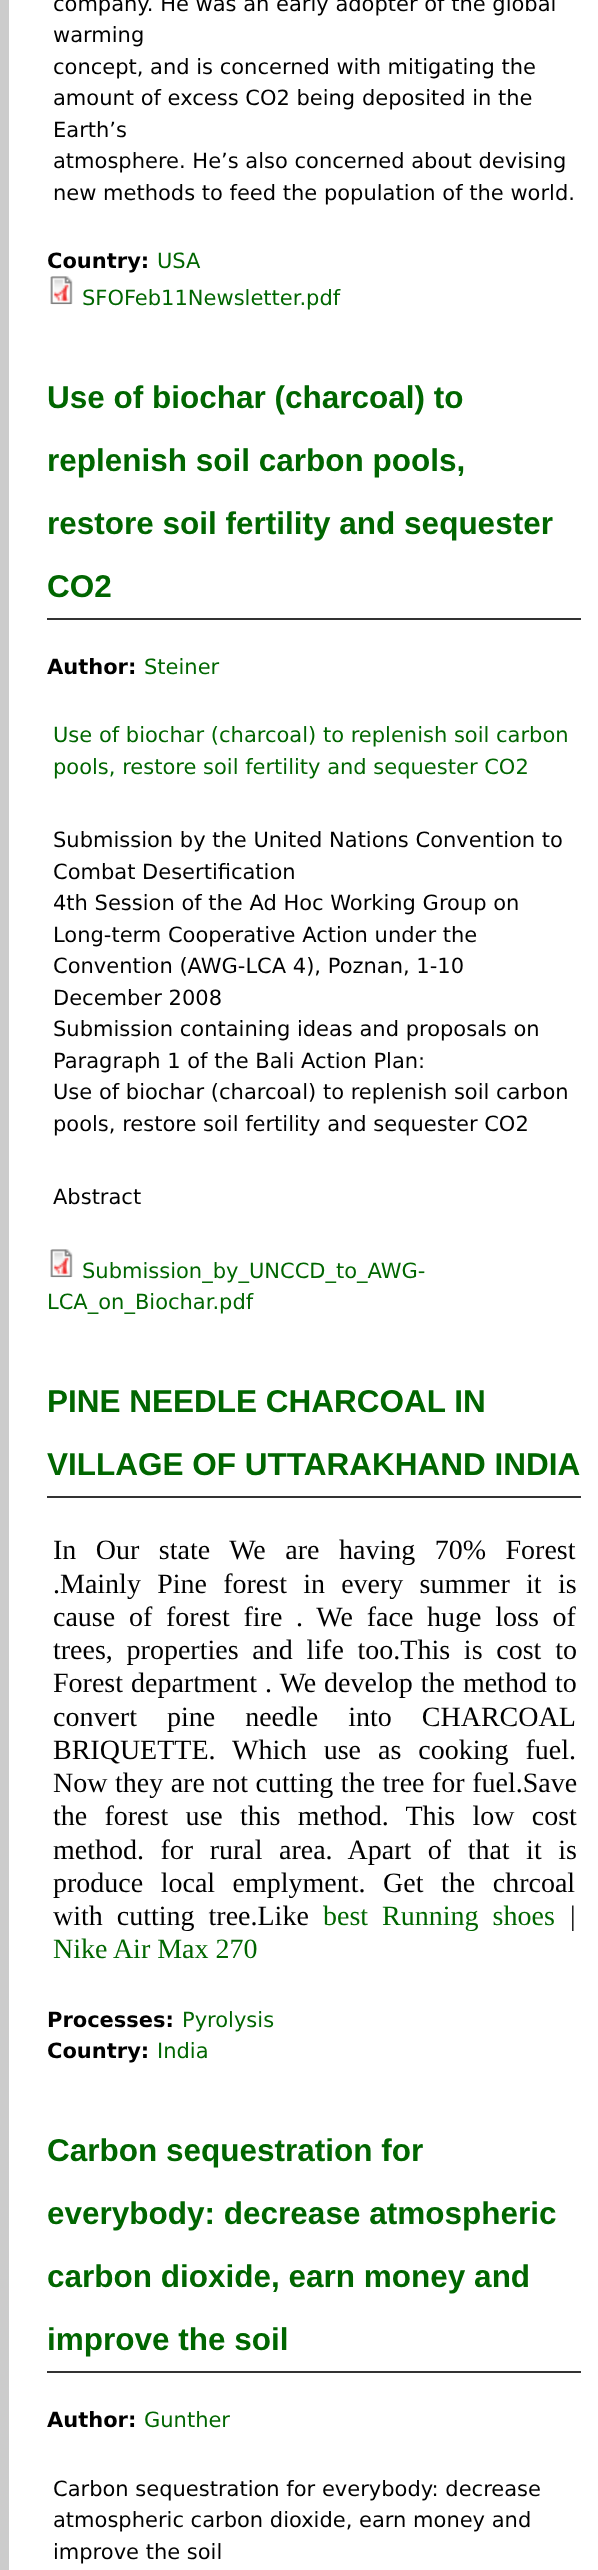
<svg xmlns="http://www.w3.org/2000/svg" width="598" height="2570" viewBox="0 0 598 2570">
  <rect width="100%" height="100%" fill="rgb(255,255,255)"/>
  <path d="M0 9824V-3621H9V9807Z" fill="rgb(204,204,204)"/>
  <g font-family="DejaVu Sans" font-size="21" fill="rgb(0,0,0)">
    <text>
      <tspan x="53" y="11">company. He was an early adopter of the global</tspan>
      <tspan x="53" y="42">warming</tspan>
      <tspan x="53" y="74">concept, and is concerned with mitigating the</tspan>
      <tspan x="53" y="105">amount of excess CO2 being deposited in the</tspan>
      <tspan x="53" y="137">Earth’s</tspan>
      <tspan x="53" y="168">atmosphere. He’s also concerned about devising</tspan>
      <tspan x="53" y="200">new methods to feed the population of the world.</tspan>
    </text>
  </g>
  <text x="47" y="268" font-family="DejaVu Sans" font-size="21" font-weight="bold" fill="rgb(0,0,0)">Country:</text>
  <text x="157" y="268" font-family="DejaVu Sans" font-size="21" fill="rgb(0,102,0)">USA</text>
  <image x="50" y="276" width="23" height="29" href="pic1.png"/>
  <text x="82" y="305" font-family="DejaVu Sans" font-size="21" fill="rgb(0,102,0)">SFOFeb11Newsletter.pdf</text>
  <rect x="47" y="618" width="534" height="2" fill="rgb(51,51,51)"/>
  <g font-family="Liberation Sans" font-size="31.5" font-weight="bold" fill="rgb(0,102,0)">
    <text x="47" y="408">Use of biochar (charcoal) to</text>
    <text x="47" y="471">replenish soil carbon pools,</text>
    <text x="47" y="534">restore soil fertility and sequester</text>
    <text x="47" y="597">CO2</text>
  </g>
  <text x="47" y="674" font-family="DejaVu Sans" font-size="21" font-weight="bold" fill="rgb(0,0,0)">Author:</text>
  <g font-family="DejaVu Sans" font-size="21" fill="rgb(0,102,0)">
    <text x="144" y="674">Steiner</text>
    <text>
      <tspan x="53" y="742">Use of biochar (charcoal) to replenish soil carbon</tspan>
      <tspan x="53" y="774">pools, restore soil fertility and sequester CO2</tspan>
    </text>
  </g>
  <g font-family="DejaVu Sans" font-size="21" fill="rgb(0,0,0)">
    <text>
      <tspan x="53" y="847">Submission by the United Nations Convention to</tspan>
      <tspan x="53" y="879">Combat Desertification</tspan>
      <tspan x="53" y="910">4th Session of the Ad Hoc Working Group on</tspan>
      <tspan x="53" y="942">Long-term Cooperative Action under the</tspan>
      <tspan x="53" y="973">Convention (AWG-LCA 4), Poznan, 1-10</tspan>
      <tspan x="53" y="1005">December 2008</tspan>
      <tspan x="53" y="1036">Submission containing ideas and proposals on</tspan>
      <tspan x="53" y="1068">Paragraph 1 of the Bali Action Plan:</tspan>
      <tspan x="53" y="1099">Use of biochar (charcoal) to replenish soil carbon</tspan>
      <tspan x="53" y="1131">pools, restore soil fertility and sequester CO2</tspan>
    </text>
    <text x="53" y="1204">Abstract</text>
  </g>
  <image x="50" y="1249" width="23" height="29" href="pic1.png"/>
  <g font-family="DejaVu Sans" font-size="21" fill="rgb(0,102,0)">
    <text x="82" y="1278">Submission_by_UNCCD_to_AWG-</text>
    <text x="47" y="1309">LCA_on_Biochar.pdf</text>
  </g>
  <rect x="47" y="1496" width="534" height="2" fill="rgb(51,51,51)"/>
  <g font-family="Liberation Sans" font-size="31.5" font-weight="bold" fill="rgb(0,102,0)">
    <text x="47" y="1412">PINE NEEDLE CHARCOAL IN</text>
    <text x="47" y="1475">VILLAGE OF UTTARAKHAND INDIA</text>
  </g>
  <g font-family="Liberation Serif" font-size="28" fill="rgb(0,0,0)">
    <text>
      <tspan x="53" y="1559" word-spacing="12.5">In Our state We are having 70% Forest</tspan>
      <tspan x="53" y="1593" word-spacing="9.25">.Mainly Pine forest in every summer it is</tspan>
      <tspan x="53" y="1626" word-spacing="6.75">cause of forest fire . We face huge loss of</tspan>
      <tspan x="53" y="1659" word-spacing="6.75">trees, properties and life too.This is cost to</tspan>
      <tspan x="53" y="1692" word-spacing="1">Forest department . We develop the method to</tspan>
      <tspan x="53" y="1726" word-spacing="23">convert pine needle into CHARCOAL</tspan>
      <tspan x="53" y="1759" word-spacing="10">BRIQUETTE. Which use as cooking fuel.</tspan>
      <tspan x="53" y="1792" word-spacing="0.5">Now they are not cutting the tree for fuel.Save</tspan>
      <tspan x="53" y="1825" word-spacing="10.25">the forest use this method. This low cost</tspan>
      <tspan x="53" y="1859" word-spacing="9.5">method. for rural area. Apart of that it is</tspan>
      <tspan x="53" y="1892" word-spacing="10.5">produce local emplyment. Get the chrcoal</tspan>
      <tspan x="53" y="1925" word-spacing="7">with cutting tree.Like</tspan>
    </text>
  </g>
  <text x="323" y="1925" word-spacing="7" font-family="Liberation Serif" font-size="28" fill="rgb(0,102,0)">best Running shoes</text>
  <text x="570" y="1925" font-family="Liberation Serif" font-size="28" fill="rgb(0,0,0)">|</text>
  <text x="53" y="1958" font-family="Liberation Serif" font-size="28" fill="rgb(0,102,0)">Nike Air Max 270</text>
  <text x="47" y="2027" font-family="DejaVu Sans" font-size="21" font-weight="bold" fill="rgb(0,0,0)">Processes:</text>
  <text x="182" y="2027" font-family="DejaVu Sans" font-size="21" fill="rgb(0,102,0)">Pyrolysis</text>
  <text x="47" y="2058" font-family="DejaVu Sans" font-size="21" font-weight="bold" fill="rgb(0,0,0)">Country:</text>
  <text x="157" y="2058" font-family="DejaVu Sans" font-size="21" fill="rgb(0,102,0)">India</text>
  <rect x="47" y="2371" width="534" height="2" fill="rgb(51,51,51)"/>
  <g font-family="Liberation Sans" font-size="31.5" font-weight="bold" fill="rgb(0,102,0)">
    <text x="47" y="2161">Carbon sequestration for</text>
    <text x="47" y="2224">everybody: decrease atmospheric</text>
    <text x="47" y="2287">carbon dioxide, earn money and</text>
    <text x="47" y="2350">improve the soil</text>
  </g>
  <text x="47" y="2427" font-family="DejaVu Sans" font-size="21" font-weight="bold" fill="rgb(0,0,0)">Author:</text>
  <text x="144" y="2427" font-family="DejaVu Sans" font-size="21" fill="rgb(0,102,0)">Gunther</text>
  <g font-family="DejaVu Sans" font-size="21" fill="rgb(0,0,0)">
    <text>
      <tspan x="53" y="2496">Carbon sequestration for everybody: decrease</tspan>
      <tspan x="53" y="2527">atmospheric carbon dioxide, earn money and</tspan>
      <tspan x="53" y="2559">improve the soil</tspan>
    </text>
  </g>
</svg>
